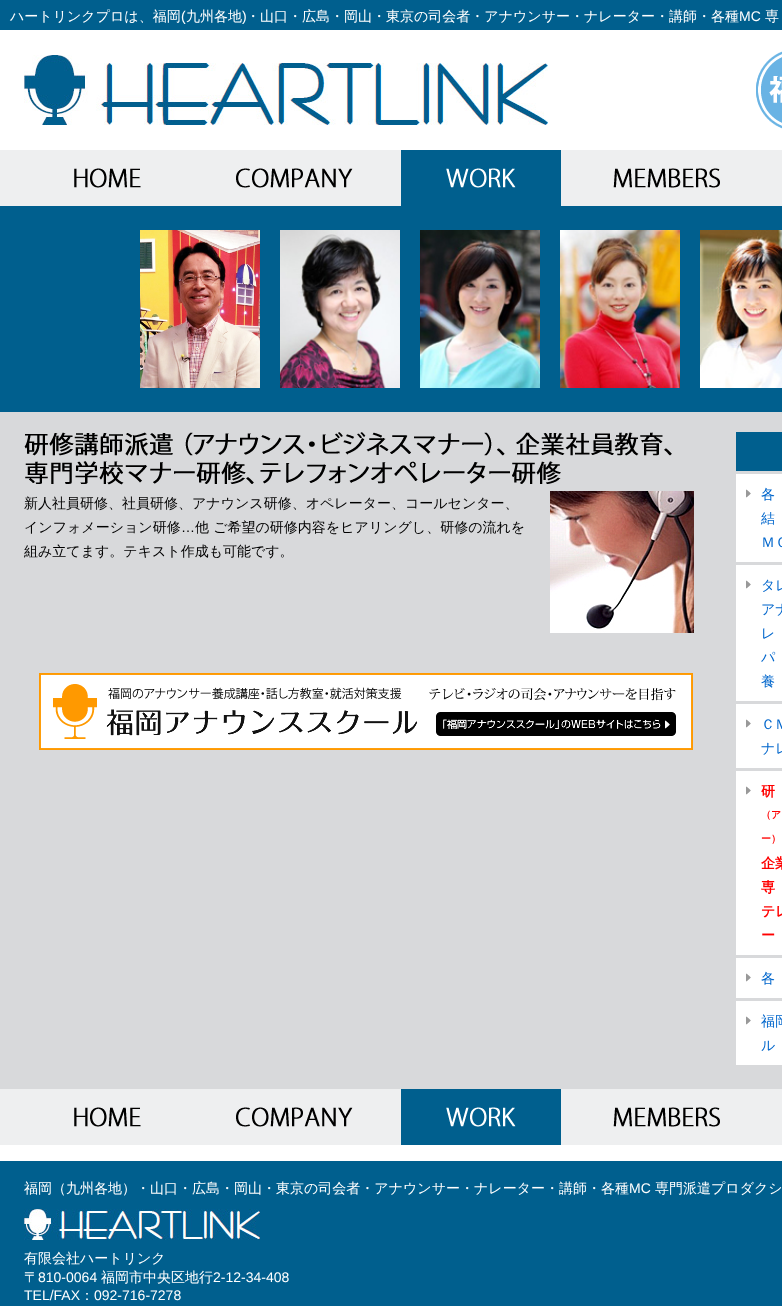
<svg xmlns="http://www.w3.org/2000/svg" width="782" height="1306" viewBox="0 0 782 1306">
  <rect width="100%" height="100%" fill="rgb(255,255,255)"/>
  <rect x="0" y="0" width="782" height="30" fill="rgb(0,95,142)"/>
  <text x="10" y="21" font-family="WenQuanYi Zen Hei" font-size="14" font-weight="500" fill="rgb(255,255,255)">ハートリンクプロは、福岡</text>
  <text x="181" y="21" font-family="Liberation Sans" font-size="14" fill="rgb(255,255,255)">(</text>
  <text x="186" y="21" font-family="WenQuanYi Zen Hei" font-size="14" font-weight="500" fill="rgb(255,255,255)">九州各地</text>
  <text x="242" y="21" font-family="Liberation Sans" font-size="14" fill="rgb(255,255,255)">)</text>
  <text x="246" y="21" font-family="WenQuanYi Zen Hei" font-size="14" font-weight="500" fill="rgb(255,255,255)">・山口・広島・岡山・東京の司会者・アナウンサー・ナレーター・講師・各種</text>
  <text x="739" y="21" font-family="Liberation Sans" font-size="14" fill="rgb(255,255,255)">MC</text>
  <text x="765" y="21" font-family="WenQuanYi Zen Hei" font-size="14" font-weight="500" fill="rgb(255,255,255)">専</text>
  <image x="24" y="55" width="524" height="70" href="pic1.png"/>
  <image x="756" y="51" width="26" height="78" href="pic2.png"/>
  <rect x="0" y="150" width="782" height="56" fill="rgb(238,239,240)"/>
  <image x="74" y="168" width="67" height="20" href="pic3.png"/>
  <image x="236" y="168" width="117" height="20" href="pic4.png"/>
  <image x="401" y="150" width="160" height="56" href="pic5.png"/>
  <image x="613" y="168" width="107" height="20" href="pic6.png"/>
  <rect x="0" y="412" width="782" height="677" fill="rgb(216,217,219)"/>
  <rect x="0" y="206" width="782" height="206" fill="rgb(0,95,142)"/>
  <image x="140" y="230" width="120" height="158" href="pic7.png"/>
  <image x="280" y="230" width="120" height="158" href="pic8.png"/>
  <image x="420" y="230" width="120" height="158" href="pic9.png"/>
  <image x="560" y="230" width="120" height="158" href="pic10.png"/>
  <image x="700" y="230" width="82" height="158" href="pic11.png"/>
  <image x="24" y="432" width="648" height="53" href="pic12.png"/>
  <text x="24" y="508" font-family="WenQuanYi Zen Hei" font-size="14" font-weight="500" fill="rgb(0,0,0)">新人社員研修、社員研修、アナウンス研修、オペレーター、コールセンター、</text>
  <image x="550" y="491" width="144" height="142" href="pic13.png"/>
  <text x="24" y="532" font-family="WenQuanYi Zen Hei" font-size="14" font-weight="500" fill="rgb(0,0,0)">インフォメーション研修</text>
  <text x="181" y="532" font-family="Liberation Sans" font-size="14" fill="rgb(0,0,0)">…</text>
  <g font-family="WenQuanYi Zen Hei" font-size="14" font-weight="500" fill="rgb(0,0,0)">
    <text x="195" y="532">他 ご希望の研修内容をヒアリングし、研修の流れを</text>
    <text x="24" y="556">組み立てます。テキスト作成も可能です。</text>
  </g>
  <image x="39" y="673" width="654" height="77" href="pic14.png"/>
  <rect x="736" y="432" width="46" height="39" fill="rgb(0,95,142)"/>
  <rect x="736" y="474" width="46" height="88" fill="rgb(255,255,255)"/>
  <image x="746" y="489" width="5" height="9" href="pic15.png"/>
  <g font-family="WenQuanYi Zen Hei" font-size="14" font-weight="500" fill="rgb(0,102,204)">
    <text>
      <tspan x="761" y="499">各</tspan>
      <tspan x="761" y="523">結</tspan>
      <tspan x="761" y="547">ＭＣ</tspan>
    </text>
  </g>
  <rect x="736" y="565" width="46" height="136" fill="rgb(255,255,255)"/>
  <image x="746" y="580" width="5" height="9" href="pic15.png"/>
  <g font-family="WenQuanYi Zen Hei" font-size="14" font-weight="500" fill="rgb(0,102,204)">
    <text>
      <tspan x="761" y="590">タレ</tspan>
      <tspan x="761" y="614">アナ</tspan>
      <tspan x="761" y="638">レ</tspan>
      <tspan x="761" y="662">パ</tspan>
      <tspan x="761" y="686">養</tspan>
    </text>
  </g>
  <rect x="736" y="704" width="46" height="64" fill="rgb(255,255,255)"/>
  <image x="746" y="719" width="5" height="9" href="pic15.png"/>
  <g font-family="WenQuanYi Zen Hei" font-size="14" font-weight="500" fill="rgb(0,102,204)">
    <text>
      <tspan x="761" y="729">ＣＭ</tspan>
      <tspan x="761" y="753">ナレ</tspan>
    </text>
  </g>
  <rect x="736" y="771" width="46" height="184" fill="rgb(255,255,255)"/>
  <image x="746" y="786" width="5" height="9" href="pic15.png"/>
  <text x="761" y="796" font-family="WenQuanYi Zen Hei" font-size="14" font-weight="bold" fill="rgb(255,0,0)">研</text>
  <g font-family="WenQuanYi Zen Hei" font-size="10" font-weight="bold" fill="rgb(255,0,0)">
    <text x="761" y="818">（ア</text>
    <text x="761" y="842">ー）</text>
  </g>
  <g font-family="WenQuanYi Zen Hei" font-size="14" font-weight="bold" fill="rgb(255,0,0)">
    <text>
      <tspan x="761" y="868">企業</tspan>
      <tspan x="761" y="892">専</tspan>
      <tspan x="761" y="916">テレ</tspan>
      <tspan x="761" y="940">ー</tspan>
    </text>
  </g>
  <rect x="736" y="958" width="46" height="40" fill="rgb(255,255,255)"/>
  <image x="746" y="973" width="5" height="9" href="pic15.png"/>
  <text x="761" y="983" font-family="WenQuanYi Zen Hei" font-size="14" font-weight="500" fill="rgb(0,102,204)">各</text>
  <rect x="736" y="1001" width="46" height="64" fill="rgb(255,255,255)"/>
  <image x="746" y="1016" width="5" height="9" href="pic15.png"/>
  <g font-family="WenQuanYi Zen Hei" font-size="14" font-weight="500" fill="rgb(0,102,204)">
    <text>
      <tspan x="761" y="1026">福岡</tspan>
      <tspan x="761" y="1050">ル</tspan>
    </text>
  </g>
  <rect x="0" y="1089" width="782" height="56" fill="rgb(238,239,240)"/>
  <image x="74" y="1107" width="67" height="20" href="pic3.png"/>
  <image x="236" y="1107" width="117" height="20" href="pic4.png"/>
  <image x="401" y="1089" width="160" height="56" href="pic5.png"/>
  <image x="613" y="1107" width="107" height="20" href="pic6.png"/>
  <rect x="0" y="1161" width="782" height="145" fill="rgb(0,95,142)"/>
  <text x="24" y="1193" font-family="WenQuanYi Zen Hei" font-size="14" font-weight="500" fill="rgb(255,255,255)">福岡（九州各地）・山口・広島・岡山・東京の司会者・アナウンサー・ナレーター・講師・各種</text>
  <text x="629" y="1193" font-family="Liberation Sans" font-size="14" fill="rgb(255,255,255)">MC</text>
  <text x="655" y="1193" font-family="WenQuanYi Zen Hei" font-size="14" font-weight="500" fill="rgb(255,255,255)">専門派遣プロダクシ</text>
  <image x="24" y="1209" width="236" height="31" href="pic16.png"/>
  <g font-family="WenQuanYi Zen Hei" font-size="14" font-weight="500" fill="rgb(255,255,255)">
    <text>
      <tspan x="24" y="1263">有限会社ハートリンク</tspan>
      <tspan x="24" y="1282">〒</tspan>
    </text>
  </g>
  <text x="38" y="1282" font-family="Liberation Sans" font-size="14" fill="rgb(255,255,255)">810-0064</text>
  <text x="101" y="1282" font-family="WenQuanYi Zen Hei" font-size="14" font-weight="500" fill="rgb(255,255,255)">福岡市中央区地行</text>
  <g font-family="Liberation Sans" font-size="14" fill="rgb(255,255,255)">
    <text x="213" y="1282">2-12-34-408</text>
    <text x="24" y="1300">TEL/FAX</text>
  </g>
  <text x="80" y="1300" font-family="WenQuanYi Zen Hei" font-size="14" font-weight="500" fill="rgb(255,255,255)">：</text>
  <text x="94" y="1300" font-family="Liberation Sans" font-size="14" fill="rgb(255,255,255)">092-716-7278</text>
</svg>
